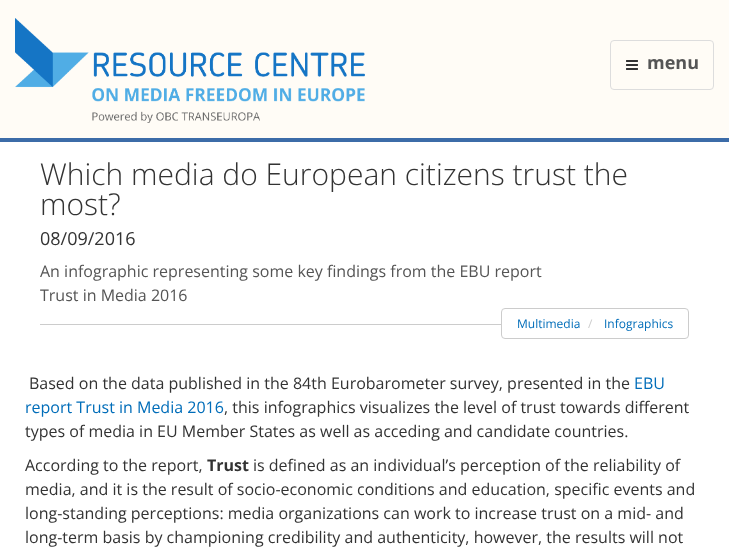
<svg xmlns="http://www.w3.org/2000/svg" width="729" height="557" viewBox="0 0 729 557">
  <rect width="100%" height="100%" fill="rgb(255,255,255)"/>
  <rect x="0" y="0" width="729" height="138" fill="rgb(255,252,246)"/>
  <rect x="0" y="138" width="729" height="4" fill="rgb(60,108,168)"/>
  <image x="15" y="18" width="350" height="105" href="pic1.png"/>
  <rect x="610.5" y="40.5" width="103" height="49" rx="3.5" fill="none" stroke="rgb(221,221,221)"/>
  <image x="626" y="60" width="12" height="10" href="pic2.png"/>
  <text x="647" y="69" font-family="Open Sans" font-size="18" font-weight="bold" fill="rgb(85,85,85)">menu</text>
  <rect x="40" y="324" width="461" height="1" fill="rgb(204,204,204)"/>
  <g font-family="Open Sans" font-size="30" font-weight="300" fill="rgb(51,51,51)">
    <text>
      <tspan x="40" y="185">Which media do European citizens trust the</tspan>
      <tspan x="40" y="215">most?</tspan>
    </text>
  </g>
  <text x="40" y="245" font-family="Open Sans" font-size="18" fill="rgb(51,51,51)">08/09/2016</text>
  <g font-family="Open Sans" font-size="16" fill="rgb(85,85,85)">
    <text>
      <tspan x="40" y="277">An infographic representing some key findings from the EBU report</tspan>
      <tspan x="40" y="301">Trust in Media 2016</tspan>
    </text>
  </g>
  <rect x="501.5" y="308.5" width="187" height="30" rx="3.5" fill="none" stroke="rgb(204,204,204)"/>
  <text x="517" y="328" font-family="Open Sans" font-size="12" fill="rgb(0,109,185)">Multimedia</text>
  <text x="588" y="328" font-family="Open Sans" font-size="12" fill="rgb(204,204,204)">/</text>
  <text x="604" y="328" font-family="Open Sans" font-size="12" fill="rgb(0,109,185)">Infographics</text>
  <text x="29" y="389" font-family="Open Sans" font-size="16" fill="rgb(51,51,51)">Based on the data published in the 84th Eurobarometer survey, presented in the</text>
  <g font-family="Open Sans" font-size="16" fill="rgb(0,109,185)">
    <text x="634" y="389">EBU</text>
    <text x="25" y="413">report Trust in Media 2016</text>
  </g>
  <g font-family="Open Sans" font-size="16" fill="rgb(51,51,51)">
    <text x="224" y="413">, this infographics visualizes the level of trust towards different</text>
    <text x="25" y="437">types of media in EU Member States as well as acceding and candidate countries.</text>
    <text x="25" y="471">According to the report,</text>
  </g>
  <text x="207" y="471" font-family="Open Sans" font-size="16" font-weight="bold" fill="rgb(51,51,51)">Trust</text>
  <g font-family="Open Sans" font-size="16" fill="rgb(51,51,51)">
    <text x="253" y="471">is defined as an individual’s perception of the reliability of</text>
    <text>
      <tspan x="25" y="495">media, and it is the result of socio-economic conditions and education, specific events and</tspan>
      <tspan x="25" y="519">long-standing perceptions: media organizations can work to increase trust on a mid- and</tspan>
      <tspan x="25" y="543">long-term basis by championing credibility and authenticity, however, the results will not</tspan>
    </text>
  </g>
</svg>
